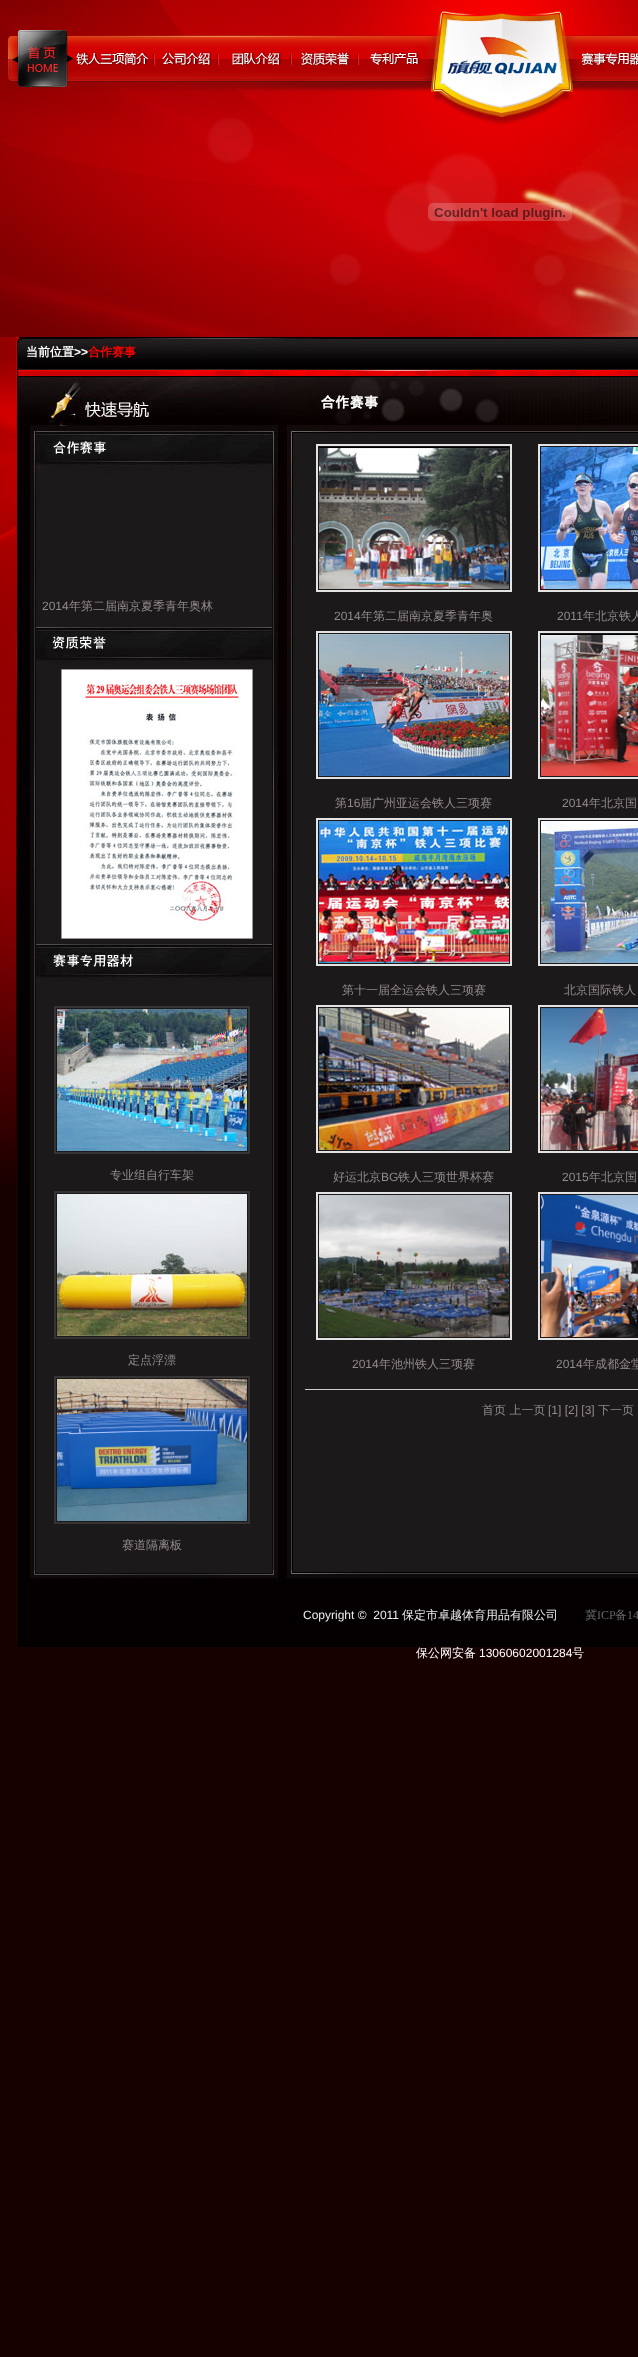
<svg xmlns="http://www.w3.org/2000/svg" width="638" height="2357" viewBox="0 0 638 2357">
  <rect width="100%" height="100%" fill="rgb(22,0,0)"/>
  <image x="0" y="337" width="16" height="847" href="pic1.png"/>
  <image x="0" y="0" width="638" height="87" href="pic2.png"/>
  <image x="0" y="87" width="638" height="250" href="pic3.png"/>
  <image x="428" y="203" width="144" height="18" href="pic4.png"/>
  <image x="16" y="993" width="622" height="654" href="pic5.png"/>
  <image x="16" y="337" width="622" height="656" href="pic6.png"/>
  <text x="26" y="356" font-family="WenQuanYi Zen Hei" font-size="12" font-weight="bold" fill="rgb(255,255,255)">当前位置</text>
  <text x="74" y="356" font-family="Liberation Sans" font-size="12" font-weight="bold" fill="rgb(255,255,255)">&gt;&gt;</text>
  <text x="88" y="356" font-family="WenQuanYi Zen Hei" font-size="12" font-weight="bold" fill="rgb(255,0,0)">合作赛事</text>
  <image x="317" y="377" width="182" height="47" href="pic7.png"/>
  <text x="42" y="610" font-family="Liberation Sans" font-size="12" fill="rgb(147,138,139)">2014</text>
  <text x="69" y="610" font-family="WenQuanYi Zen Hei" font-size="12" font-weight="500" fill="rgb(147,138,139)">年第二届南京夏季青年奥林</text>
  <image x="61" y="669" width="192" height="270" href="pic8.png"/>
  <rect x="55" y="1007" width="194" height="146" fill="none" stroke="rgb(53,51,52)" stroke-width="2"/>
  <image x="57" y="1009" width="190" height="142" href="pic9.png"/>
  <text x="110" y="1179" font-family="WenQuanYi Zen Hei" font-size="12" font-weight="500" fill="rgb(147,138,139)">专业组自行车架</text>
  <rect x="55" y="1192" width="194" height="146" fill="none" stroke="rgb(53,51,52)" stroke-width="2"/>
  <image x="57" y="1194" width="190" height="142" href="pic10.png"/>
  <text x="128" y="1364" font-family="WenQuanYi Zen Hei" font-size="12" font-weight="500" fill="rgb(147,138,139)">定点浮漂</text>
  <rect x="55" y="1377" width="194" height="146" fill="none" stroke="rgb(53,51,52)" stroke-width="2"/>
  <image x="57" y="1379" width="190" height="142" href="pic11.png"/>
  <text x="122" y="1549" font-family="WenQuanYi Zen Hei" font-size="12" font-weight="500" fill="rgb(147,138,139)">赛道隔离板</text>
  <rect x="317" y="445" width="194" height="146" fill="none" stroke="rgb(227,227,227)" stroke-width="2"/>
  <image x="319" y="447" width="190" height="142" href="pic12.png"/>
  <text x="334" y="620" font-family="Liberation Sans" font-size="12" fill="rgb(147,138,139)">2014</text>
  <text x="361" y="620" font-family="WenQuanYi Zen Hei" font-size="12" font-weight="500" fill="rgb(147,138,139)">年第二届南京夏季青年奥</text>
  <rect x="539" y="445" width="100" height="146" fill="none" stroke="rgb(227,227,227)" stroke-width="2"/>
  <image x="541" y="447" width="97" height="142" href="pic13.png"/>
  <text x="557" y="620" font-family="Liberation Sans" font-size="12" fill="rgb(147,138,139)">2011</text>
  <text x="583" y="620" font-family="WenQuanYi Zen Hei" font-size="12" font-weight="500" fill="rgb(147,138,139)">年北京铁人</text>
  <rect x="317" y="632" width="194" height="146" fill="none" stroke="rgb(227,227,227)" stroke-width="2"/>
  <image x="319" y="634" width="190" height="142" href="pic14.png"/>
  <text x="335" y="807" font-family="WenQuanYi Zen Hei" font-size="12" font-weight="500" fill="rgb(147,138,139)">第</text>
  <text x="347" y="807" font-family="Liberation Sans" font-size="12" fill="rgb(147,138,139)">16</text>
  <text x="360" y="807" font-family="WenQuanYi Zen Hei" font-size="12" font-weight="500" fill="rgb(147,138,139)">届广州亚运会铁人三项赛</text>
  <rect x="539" y="632" width="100" height="146" fill="none" stroke="rgb(227,227,227)" stroke-width="2"/>
  <image x="541" y="634" width="97" height="142" href="pic15.png"/>
  <text x="562" y="807" font-family="Liberation Sans" font-size="12" fill="rgb(147,138,139)">2014</text>
  <text x="589" y="807" font-family="WenQuanYi Zen Hei" font-size="12" font-weight="500" fill="rgb(147,138,139)">年北京国</text>
  <rect x="317" y="819" width="194" height="146" fill="none" stroke="rgb(227,227,227)" stroke-width="2"/>
  <image x="319" y="821" width="190" height="142" href="pic16.png"/>
  <text x="342" y="994" font-family="WenQuanYi Zen Hei" font-size="12" font-weight="500" fill="rgb(147,138,139)">第十一届全运会铁人三项赛</text>
  <rect x="539" y="819" width="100" height="146" fill="none" stroke="rgb(227,227,227)" stroke-width="2"/>
  <image x="541" y="821" width="97" height="142" href="pic17.png"/>
  <text x="564" y="994" font-family="WenQuanYi Zen Hei" font-size="12" font-weight="500" fill="rgb(147,138,139)">北京国际铁人</text>
  <rect x="317" y="1006" width="194" height="146" fill="none" stroke="rgb(227,227,227)" stroke-width="2"/>
  <image x="319" y="1008" width="190" height="142" href="pic18.png"/>
  <text x="333" y="1181" font-family="WenQuanYi Zen Hei" font-size="12" font-weight="500" fill="rgb(147,138,139)">好运北京</text>
  <text x="381" y="1181" font-family="Liberation Sans" font-size="12" fill="rgb(147,138,139)">BG</text>
  <text x="398" y="1181" font-family="WenQuanYi Zen Hei" font-size="12" font-weight="500" fill="rgb(147,138,139)">铁人三项世界杯赛</text>
  <rect x="539" y="1006" width="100" height="146" fill="none" stroke="rgb(227,227,227)" stroke-width="2"/>
  <image x="541" y="1008" width="97" height="142" href="pic19.png"/>
  <text x="562" y="1181" font-family="Liberation Sans" font-size="12" fill="rgb(147,138,139)">2015</text>
  <text x="589" y="1181" font-family="WenQuanYi Zen Hei" font-size="12" font-weight="500" fill="rgb(147,138,139)">年北京国</text>
  <rect x="317" y="1193" width="194" height="146" fill="none" stroke="rgb(227,227,227)" stroke-width="2"/>
  <image x="319" y="1195" width="190" height="142" href="pic20.png"/>
  <text x="352" y="1368" font-family="Liberation Sans" font-size="12" fill="rgb(147,138,139)">2014</text>
  <text x="379" y="1368" font-family="WenQuanYi Zen Hei" font-size="12" font-weight="500" fill="rgb(147,138,139)">年池州铁人三项赛</text>
  <rect x="539" y="1193" width="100" height="146" fill="none" stroke="rgb(227,227,227)" stroke-width="2"/>
  <image x="541" y="1195" width="97" height="142" href="pic21.png"/>
  <text x="556" y="1368" font-family="Liberation Sans" font-size="12" fill="rgb(147,138,139)">2014</text>
  <text x="583" y="1368" font-family="WenQuanYi Zen Hei" font-size="12" font-weight="500" fill="rgb(147,138,139)">年成都金堂</text>
  <rect x="305" y="1389" width="333" height="1" fill="rgb(204,204,204)"/>
  <text x="482" y="1414" font-family="WenQuanYi Zen Hei" font-size="12" font-weight="500" fill="rgb(147,138,139)">首页 上一页</text>
  <text x="548" y="1414" font-family="Liberation Sans" font-size="12" fill="rgb(147,138,139)">[1] [2] [3]</text>
  <text x="598" y="1414" font-family="WenQuanYi Zen Hei" font-size="12" font-weight="500" fill="rgb(147,138,139)">下一页</text>
  <image x="30" y="1568" width="608" height="79" href="pic22.png"/>
  <text x="303" y="1619" font-family="Liberation Sans" font-size="12" fill="rgb(238,238,238)" xml:space="preserve">Copyright ©  2011</text>
  <text x="402" y="1619" font-family="WenQuanYi Zen Hei" font-size="12" font-weight="500" fill="rgb(238,238,238)">保定市卓越体育用品有限公司</text>
  <text x="585" y="1619" font-family="WenQuanYi Zen Hei" font-size="12" font-weight="500" fill="rgb(102,102,102)">冀</text>
  <text x="597" y="1619" font-family="Liberation Serif" font-size="12" fill="rgb(102,102,102)">ICP</text>
  <text x="615" y="1619" font-family="WenQuanYi Zen Hei" font-size="12" font-weight="500" fill="rgb(102,102,102)">备</text>
  <text x="627" y="1619" font-family="Liberation Serif" font-size="12" fill="rgb(102,102,102)">14</text>
  <text x="416" y="1657" font-family="WenQuanYi Zen Hei" font-size="12" font-weight="500" fill="rgb(255,255,255)">保公网安备</text>
  <text x="479" y="1657" font-family="Liberation Sans" font-size="12" fill="rgb(255,255,255)">13060602001284</text>
  <text x="572" y="1657" font-family="WenQuanYi Zen Hei" font-size="12" font-weight="500" fill="rgb(255,255,255)">号</text>
</svg>
